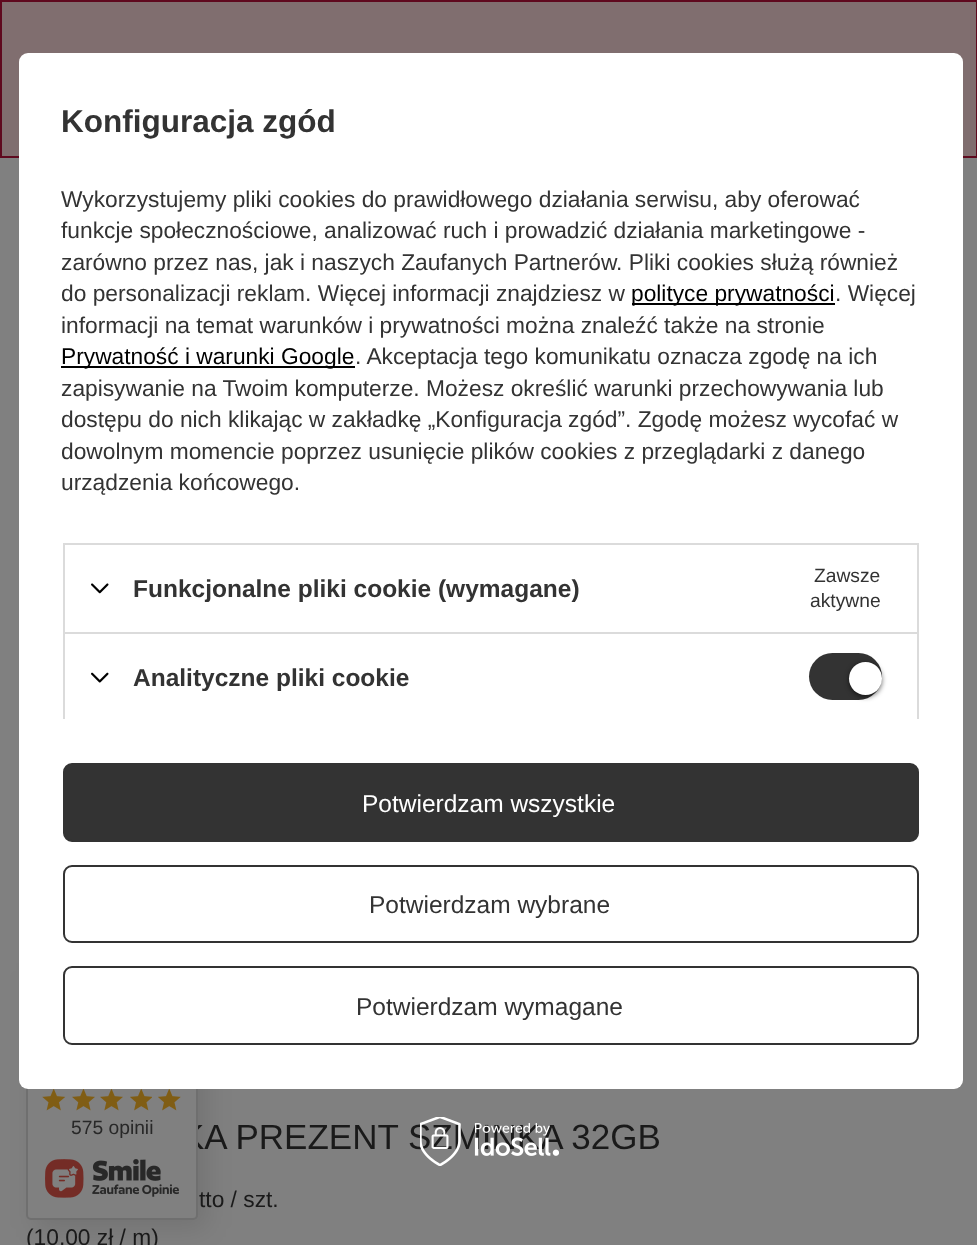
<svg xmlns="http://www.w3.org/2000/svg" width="977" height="1245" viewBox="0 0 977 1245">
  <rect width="100%" height="100%" fill="rgb(128,128,128)"/>
  <rect x="1" y="1" width="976" height="156" fill="rgb(128,110,111)" stroke="rgb(95,9,30)" stroke-width="2"/>
  <rect x="35" y="971" width="172" height="258" rx="5" fill="rgba(0,0,0,0.1)" filter="blur(13px)"/>
  <text x="181" y="1149" font-family="Liberation Sans" font-size="35" fill="rgb(26,26,26)">KA PREZENT SZMINKA 32GB</text>
  <rect x="27" y="964" width="170" height="255" rx="4" fill="rgb(128,128,128)" stroke="rgb(111,111,111)" stroke-width="2"/>
  <rect x="19" y="53" width="944" height="1036" rx="9" fill="rgb(255,255,255)"/>
  <text x="61" y="132" font-family="Liberation Sans" font-size="31.5" font-weight="bold" fill="rgb(51,51,51)">Konfiguracja zgód</text>
  <g font-family="Liberation Sans" font-size="22.75" fill="rgb(51,51,51)">
    <text>
      <tspan x="61" y="207">Wykorzystujemy pliki cookies do prawidłowego działania serwisu, aby oferować</tspan>
      <tspan x="61" y="238">funkcje społecznościowe, analizować ruch i prowadzić działania marketingowe -</tspan>
      <tspan x="61" y="270">zarówno przez nas, jak i naszych Zaufanych Partnerów. Pliki cookies służą również</tspan>
      <tspan x="61" y="301">do personalizacji reklam. Więcej informacji znajdziesz w</tspan>
    </text>
  </g>
  <rect x="632" y="303" width="203" height="2" fill="rgb(0,0,0)"/>
  <text x="631" y="301" font-family="Liberation Sans" font-size="22.75" fill="rgb(0,0,0)">polityce prywatności</text>
  <g font-family="Liberation Sans" font-size="22.75" fill="rgb(51,51,51)">
    <text x="835" y="301">. Więcej</text>
    <text x="61" y="333">informacji na temat warunków i prywatności można znaleźć także na stronie</text>
  </g>
  <rect x="61" y="366" width="294" height="2" fill="rgb(0,0,0)"/>
  <text x="61" y="364" font-family="Liberation Sans" font-size="22.75" fill="rgb(0,0,0)">Prywatność i warunki Google</text>
  <g font-family="Liberation Sans" font-size="22.75" fill="rgb(51,51,51)">
    <text x="355" y="364">. Akceptacja tego komunikatu oznacza zgodę na ich</text>
    <text>
      <tspan x="61" y="396">zapisywanie na Twoim komputerze. Możesz określić warunki przechowywania lub</tspan>
      <tspan x="61" y="427">dostępu do nich klikając w zakładkę „Konfiguracja zgód”. Zgodę możesz wycofać w</tspan>
      <tspan x="61" y="459">dowolnym momencie poprzez usunięcie plików cookies z przeglądarki z danego</tspan>
      <tspan x="61" y="490">urządzenia końcowego.</tspan>
    </text>
  </g>
  <rect x="63" y="543" width="856" height="2" fill="rgb(219,219,219)"/>
  <rect x="917" y="543" width="2" height="89" fill="rgb(219,219,219)"/>
  <rect x="63" y="543" width="2" height="89" fill="rgb(219,219,219)"/>
  <image x="91" y="583" width="18" height="11" href="pic1.png"/>
  <text x="133" y="597" font-family="Liberation Sans" font-size="24.5" font-weight="bold" fill="rgb(51,51,51)">Funkcjonalne pliki cookie (wymagane)</text>
  <g font-family="Liberation Sans" font-size="19.25" fill="rgb(51,51,51)">
    <text x="814" y="582">Zawsze</text>
    <text x="810" y="607">aktywne</text>
  </g>
  <rect x="63" y="632" width="856" height="2" fill="rgb(219,219,219)"/>
  <rect x="917" y="632" width="2" height="87" fill="rgb(219,219,219)"/>
  <rect x="63" y="632" width="2" height="87" fill="rgb(219,219,219)"/>
  <image x="91" y="672" width="18" height="11" href="pic2.png"/>
  <text x="133" y="686" font-family="Liberation Sans" font-size="24.5" font-weight="bold" fill="rgb(51,51,51)">Analityczne pliki cookie</text>
  <rect x="809" y="653" width="73" height="47" rx="23.5" fill="rgb(51,51,51)"/>
  <rect x="849" y="663" width="33" height="34" rx="16.5" fill="rgba(0,0,0,0.56)" filter="blur(2.5px)"/>
  <circle cx="865.5" cy="678.5" r="16.5" fill="rgb(255,255,255)"/>
  <rect x="64" y="764" width="854" height="77" rx="8" fill="rgb(51,51,51)" stroke="rgb(51,51,51)" stroke-width="2"/>
  <text x="362" y="812" font-family="Liberation Sans" font-size="24.5" fill="rgb(255,255,255)">Potwierdzam wszystkie</text>
  <rect x="64" y="866" width="854" height="76" rx="8" fill="none" stroke="rgb(51,51,51)" stroke-width="2"/>
  <text x="369" y="913" font-family="Liberation Sans" font-size="24.5" fill="rgb(51,51,51)">Potwierdzam wybrane</text>
  <rect x="64" y="967" width="854" height="77" rx="8" fill="none" stroke="rgb(51,51,51)" stroke-width="2"/>
  <text x="356" y="1015" font-family="Liberation Sans" font-size="24.5" fill="rgb(51,51,51)">Potwierdzam wymagane</text>
  <image x="420" y="1117" width="139" height="49" href="pic3.png"/>
  <image x="42" y="1089" width="24" height="22" href="pic4.png"/>
  <image x="72" y="1089" width="23" height="22" href="pic5.png"/>
  <image x="100" y="1089" width="23" height="22" href="pic5.png"/>
  <image x="130" y="1089" width="22" height="22" href="pic6.png"/>
  <image x="158" y="1089" width="23" height="22" href="pic7.png"/>
  <text x="71" y="1134" font-family="Liberation Sans" font-size="19.25" fill="rgb(40,40,40)">575 opinii</text>
  <image x="45" y="1159" width="134" height="39" href="pic8.png"/>
  <g font-family="Liberation Sans" font-size="22.75" fill="rgb(26,26,26)">
    <text x="199" y="1207">tto / szt.</text>
    <text x="26" y="1245">(10,00 zł / m)</text>
  </g>
</svg>
